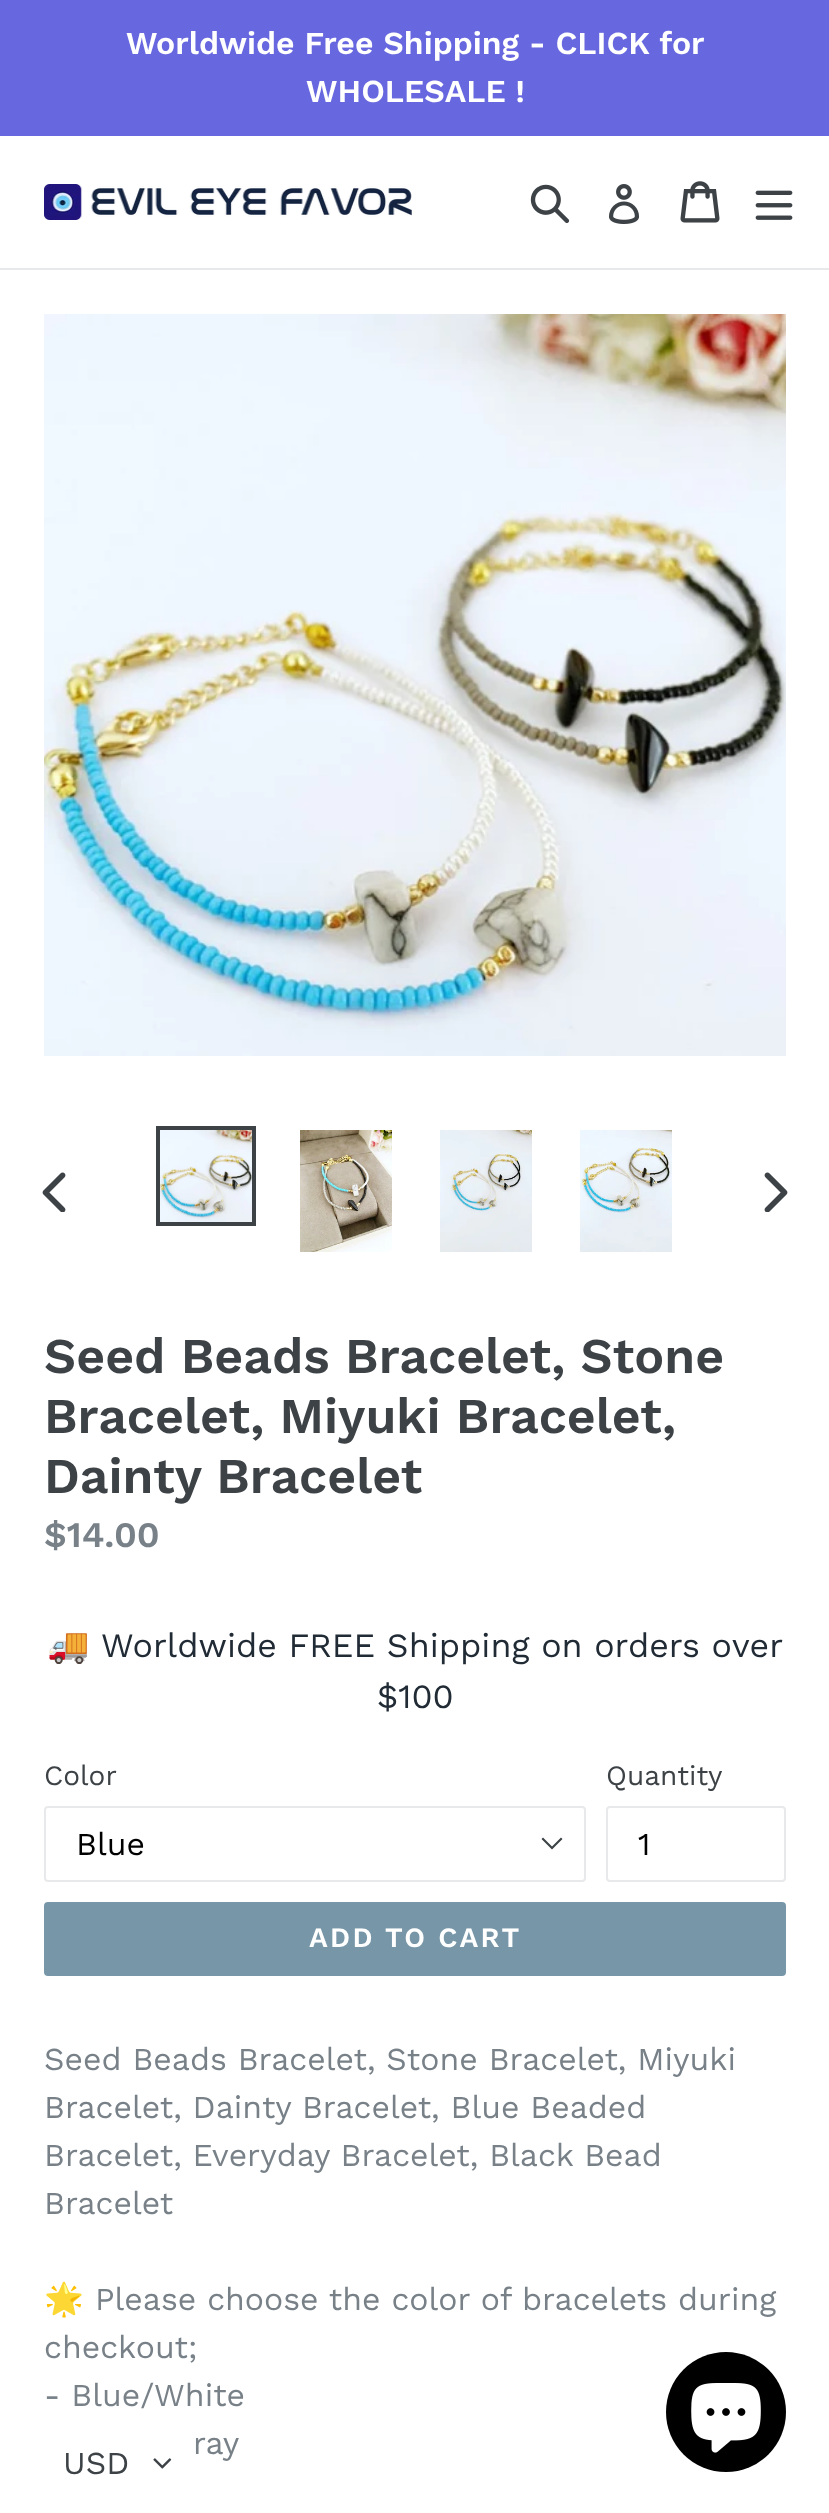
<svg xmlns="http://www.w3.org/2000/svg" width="829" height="2513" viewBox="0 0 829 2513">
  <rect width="100%" height="100%" fill="rgb(255,255,255)"/>
  <rect x="0" y="0" width="829" height="136" fill="rgb(103,103,223)"/>
  <g font-family="Work Sans" font-size="32" font-weight="600" fill="rgb(255,255,255)">
    <text x="126" y="54">Worldwide Free Shipping - CLICK for</text>
    <text x="306" y="102">WHOLESALE !</text>
  </g>
  <rect x="0" y="268" width="829" height="2" fill="rgb(232,233,235)"/>
  <image x="44" y="184" width="368" height="36" href="pic1.png"/>
  <image x="530" y="184" width="40" height="40" href="pic2.png"/>
  <image x="609" y="184" width="31" height="40" href="pic3.png"/>
  <image x="680" y="181" width="40" height="42" href="pic4.png"/>
  <image x="755" y="190" width="38" height="30" href="pic5.png"/>
  <image x="44" y="314" width="742" height="742" href="pic6.png"/>
  <image x="42" y="1172" width="24" height="40" href="pic7.png"/>
  <rect x="158" y="1128" width="96" height="96" fill="none" stroke="rgb(61,66,70)" stroke-width="4"/>
  <image x="160" y="1130" width="92" height="92" href="pic8.png"/>
  <image x="300" y="1130" width="92" height="122" href="pic9.png"/>
  <image x="440" y="1130" width="92" height="122" href="pic10.png"/>
  <image x="580" y="1130" width="92" height="122" href="pic11.png"/>
  <image x="764" y="1172" width="24" height="40" href="pic12.png"/>
  <g font-family="Work Sans" font-size="50" font-weight="600" fill="rgb(61,66,70)">
    <text>
      <tspan x="44" y="1373">Seed Beads Bracelet, Stone</tspan>
      <tspan x="44" y="1433">Bracelet, Miyuki Bracelet,</tspan>
      <tspan x="44" y="1493">Dainty Bracelet</tspan>
    </text>
  </g>
  <text x="44" y="1547" font-family="Work Sans" font-size="36" font-weight="600" fill="rgb(120,129,136)">$14.00</text>
  <text x="47" y="1657" font-family="Noto Color Emoji" font-size="34" fill="rgb(33,43,53)">🚚</text>
  <g font-family="Work Sans" font-size="34" fill="rgb(33,43,53)">
    <text x="101" y="1657">Worldwide FREE Shipping on orders over</text>
    <text x="377" y="1708">$100</text>
  </g>
  <text x="44" y="1785" font-family="Work Sans" font-size="28" fill="rgb(61,66,70)">Color</text>
  <path d="M552 1849.5L541.5 1839L543 1837.5L552 1846.5L561 1837.5L562.5 1839Z" fill="rgb(61,66,70)"/>
  <rect x="45" y="1807" width="540" height="74" rx="3" fill="none" stroke="rgb(232,233,235)" stroke-width="2"/>
  <text x="76" y="1855" font-family="Work Sans" font-size="32" fill="rgb(0,0,0)">Blue</text>
  <text x="606" y="1785" font-family="Work Sans" font-size="28" fill="rgb(61,66,70)">Quantity</text>
  <rect x="607" y="1807" width="178" height="74" rx="3" fill="none" stroke="rgb(232,233,235)" stroke-width="2"/>
  <text x="638" y="1855" font-family="Work Sans" font-size="32" fill="rgb(0,0,0)">1</text>
  <rect x="44" y="1902" width="742" height="74" rx="4" fill="rgb(119,150,168)"/>
  <text x="309" y="1947" font-family="Work Sans" font-size="28" font-weight="600" letter-spacing="2.25" fill="rgb(255,255,255)">ADD TO CART</text>
  <g font-family="Work Sans" font-size="32" fill="rgb(120,129,136)">
    <text>
      <tspan x="44" y="2070">Seed Beads Bracelet, Stone Bracelet, Miyuki</tspan>
      <tspan x="44" y="2118">Bracelet, Dainty Bracelet, Blue Beaded</tspan>
      <tspan x="44" y="2166">Bracelet, Everyday Bracelet, Black Bead</tspan>
      <tspan x="44" y="2214">Bracelet</tspan>
    </text>
  </g>
  <text x="44" y="2310" font-family="Noto Color Emoji" font-size="32" fill="rgb(120,129,136)">🌟</text>
  <g font-family="Work Sans" font-size="32" fill="rgb(120,129,136)">
    <text x="95" y="2310">Please choose the color of bracelets during</text>
    <text>
      <tspan x="44" y="2358">checkout;</tspan>
      <tspan x="44" y="2406">- Blue/White</tspan>
    </text>
    <text x="193" y="2454">ray</text>
  </g>
  <text x="63" y="2474" font-family="Work Sans" font-size="32" fill="rgb(61,66,70)">USD</text>
  <image x="153" y="2458" width="19" height="11" href="pic13.png"/>
  <circle cx="726" cy="2412" r="60" fill="rgb(0,0,0)"/>
  <image x="691" y="2383" width="70" height="70" href="pic14.png"/>
</svg>
